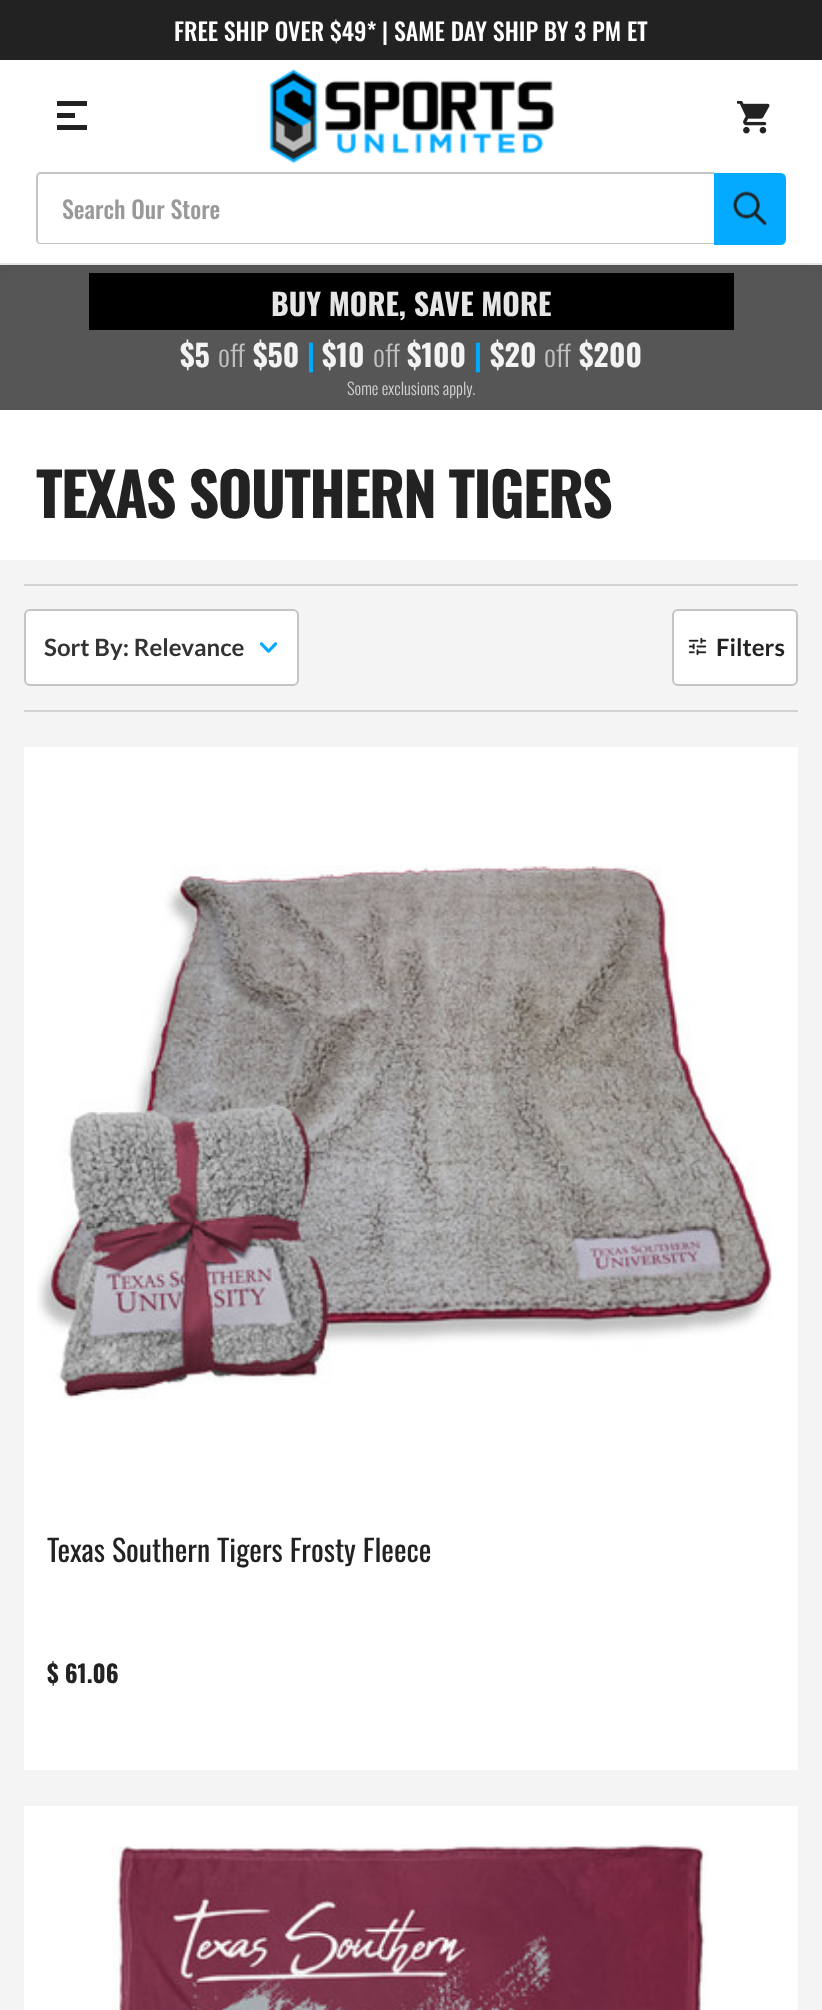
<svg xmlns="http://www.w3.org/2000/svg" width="822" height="2010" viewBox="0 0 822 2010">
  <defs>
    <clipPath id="clip1"><rect x="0" y="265" width="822" height="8"/></clipPath>
  </defs>
  <rect width="100%" height="100%" fill="rgb(255,255,255)"/>
  <rect x="0" y="265" width="822" height="145" fill="rgb(86,86,86)"/>
  <rect x="89" y="273" width="645" height="57" fill="rgb(0,0,0)"/>
  <g clip-path="url(#clip1)">
    <rect x="0" y="6" width="822" height="264" fill="rgba(34,34,34,0.06)" filter="blur(6px)"/>
  </g>
  <rect x="0" y="263" width="822" height="2" fill="rgb(229,229,229)"/>
  <rect x="0" y="0" width="822" height="60" fill="rgb(34,34,34)"/>
  <text x="174" y="41" font-family="Oswald" font-size="24" font-weight="500" fill="rgb(255,255,255)">FREE SHIP OVER $49* | SAME DAY SHIP BY 3 PM ET</text>
  <rect x="57" y="113" width="18" height="5" fill="rgb(34,34,34)"/>
  <rect x="57" y="101" width="30" height="5" fill="rgb(34,34,34)"/>
  <rect x="57" y="125" width="30" height="5" fill="rgb(34,34,34)"/>
  <image x="269" y="68" width="285" height="96" href="pic1.png"/>
  <image x="737" y="101" width="33" height="33" href="pic2.png"/>
  <path d="M40 172H714V244H40C38 244 36 242 36 240V177C36 175 38 172 40 172ZM40 174H714V243H40C39 243 38 242 38 240V177C38 175 39 174 40 174Z" fill="rgb(196,196,196)" fill-rule="evenodd"/>
  <text x="62" y="219" font-family="Oswald" font-size="24" font-weight="500" fill="rgb(153,153,153)">Search Our Store</text>
  <path d="M715 174H780C783 174 785 176 785 179V239C785 242 783 244 780 244H715Z" fill="rgb(4,170,255)" stroke="rgb(4,170,255)" stroke-width="2"/>
  <image x="733" y="191" width="34" height="35" href="pic3.png"/>
  <text x="271" y="316" font-family="Oswald" font-size="30" font-weight="bold" fill="rgb(230,230,230)">BUY MORE, SAVE MORE</text>
  <text x="180" y="367" font-family="Oswald" font-size="30" font-weight="bold" fill="rgb(243,243,243)">$5</text>
  <text x="218" y="367" font-family="Oswald" font-size="30" font-weight="300" fill="rgb(191,191,191)">off</text>
  <text x="253" y="367" font-family="Oswald" font-size="30" font-weight="bold" fill="rgb(243,243,243)">$50</text>
  <text x="307" y="367" font-family="Oswald" font-size="30" font-weight="bold" fill="rgb(0,170,255)">|</text>
  <text x="322" y="367" font-family="Oswald" font-size="30" font-weight="bold" fill="rgb(243,243,243)">$10</text>
  <text x="373" y="367" font-family="Oswald" font-size="30" font-weight="300" fill="rgb(191,191,191)">off</text>
  <text x="407" y="367" font-family="Oswald" font-size="30" font-weight="bold" fill="rgb(243,243,243)">$100</text>
  <text x="474" y="367" font-family="Oswald" font-size="30" font-weight="bold" fill="rgb(0,170,255)">|</text>
  <text x="490" y="367" font-family="Oswald" font-size="30" font-weight="bold" fill="rgb(243,243,243)">$20</text>
  <text x="544" y="367" font-family="Oswald" font-size="30" font-weight="300" fill="rgb(191,191,191)">off</text>
  <text x="579" y="367" font-family="Oswald" font-size="30" font-weight="bold" fill="rgb(243,243,243)">$200</text>
  <text x="347" y="395" font-family="Oswald" font-size="16.5" font-weight="300" fill="rgb(211,211,211)">Some exclusions apply.</text>
  <text x="36" y="518" font-family="Oswald" font-size="60" font-weight="bold" letter-spacing="-1.8" fill="rgb(34,34,34)">TEXAS SOUTHERN TIGERS</text>
  <rect x="0" y="560" width="822" height="1450" fill="rgb(244,244,244)"/>
  <rect x="24" y="584" width="774" height="2" fill="rgb(211,211,211)"/>
  <rect x="24" y="710" width="774" height="2" fill="rgb(211,211,211)"/>
  <rect x="25" y="610" width="273" height="75" rx="5" fill="rgb(255,255,255)" stroke="rgb(196,196,196)" stroke-width="2"/>
  <text x="44" y="656" font-family="Lato" font-size="24" font-weight="bold" fill="rgb(51,51,51)">Sort By: Relevance</text>
  <image x="259" y="642" width="19" height="11" href="pic4.png"/>
  <rect x="673" y="610" width="124" height="75" rx="5" fill="rgb(255,255,255)" stroke="rgb(196,196,196)" stroke-width="2"/>
  <image x="688" y="637" width="19" height="19" href="pic5.png"/>
  <text x="716" y="656" font-family="Lato" font-size="24" font-weight="bold" fill="rgb(34,34,34)">Filters</text>
  <rect x="24" y="747" width="774" height="1023" fill="rgb(255,255,255)"/>
  <image x="37" y="865" width="735" height="535" href="pic6.png"/>
  <text x="47" y="1562" font-family="Oswald" font-size="30" fill="rgb(34,34,34)">Texas Southern Tigers Frosty Fleece</text>
  <text x="47" y="1683" font-family="Oswald" font-size="24" font-weight="bold" fill="rgb(34,34,34)">$ 61.06</text>
  <rect x="24" y="1806" width="774" height="204" fill="rgb(255,255,255)"/>
  <image x="111" y="1844" width="597" height="166" href="pic7.png"/>
</svg>
